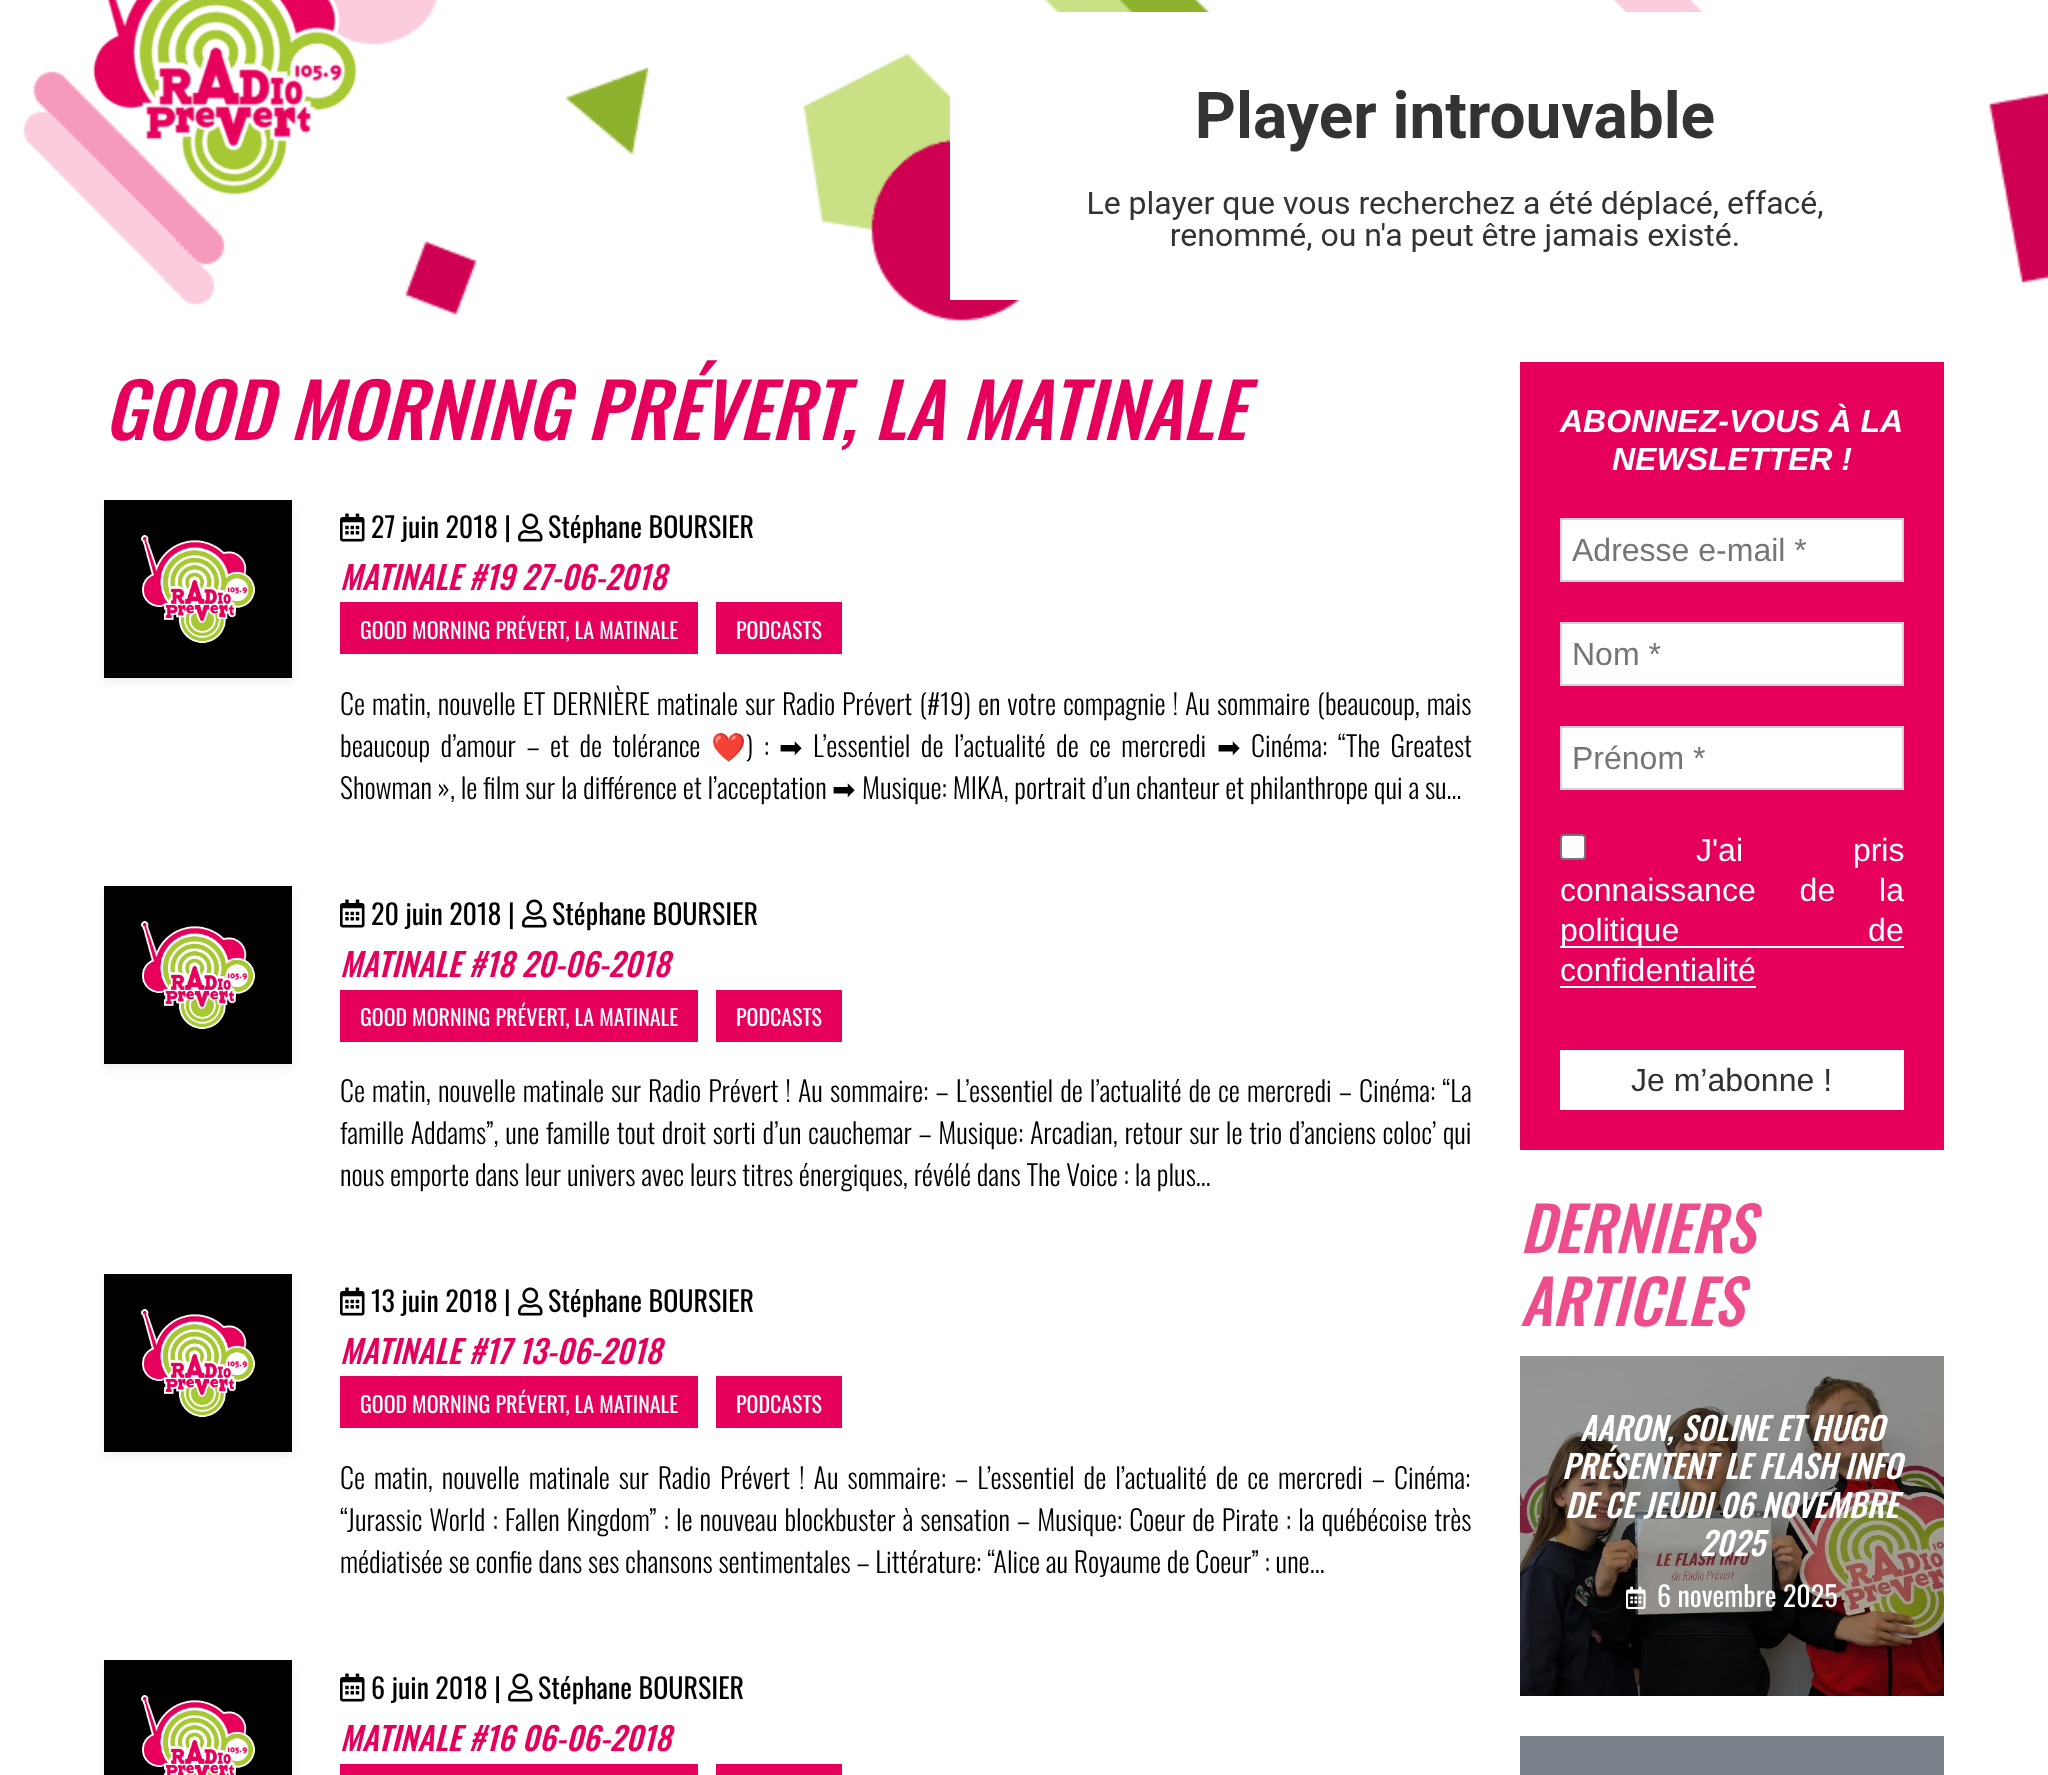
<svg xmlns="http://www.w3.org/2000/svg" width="2048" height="1775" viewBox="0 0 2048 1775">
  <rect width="100%" height="100%" fill="rgb(255,255,255)"/>
  <image x="23" y="0" width="2025" height="321" href="pic1.png"/>
  <image x="93" y="0" width="264" height="195" href="pic2.png"/>
  <image x="950" y="12" width="911" height="288" href="pic3.png"/>
  <text x="104" y="440" font-family="Oswald" font-size="74.75" font-weight="500" font-style="italic" fill="rgb(230,0,91)">GOOD MORNING PRÉVERT, LA MATINALE</text>
  <rect x="104" y="504" width="188" height="178" fill="rgba(0,0,0,0.07)" filter="blur(4px)"/>
  <image x="104" y="500" width="188" height="178" href="pic4.png"/>
  <image x="340" y="513" width="25" height="29" href="pic5.png"/>
  <text x="371" y="538" font-family="Oswald" font-size="28" fill="rgb(0,0,0)">27 juin 2018 |</text>
  <image x="518" y="513" width="25" height="29" href="pic6.png"/>
  <text x="548" y="538" font-family="Oswald" font-size="28" fill="rgb(0,0,0)">Stéphane BOURSIER</text>
  <text x="340" y="590" font-family="Oswald" font-size="32" font-weight="500" font-style="italic" fill="rgb(230,0,91)">MATINALE #19 27-06-2018</text>
  <rect x="340" y="602" width="358" height="52" fill="rgb(230,0,91)"/>
  <text x="360" y="639" font-family="Oswald" font-size="22" fill="rgb(255,255,255)">GOOD MORNING PRÉVERT, LA MATINALE</text>
  <rect x="716" y="602" width="126" height="52" fill="rgb(230,0,91)"/>
  <text x="736" y="639" font-family="Oswald" font-size="22" fill="rgb(255,255,255)">PODCASTS</text>
  <g font-family="Oswald" font-size="28" font-weight="300" fill="rgb(0,0,0)">
    <text>
      <tspan x="340" y="715" word-spacing="1.25">Ce matin, nouvelle ET DERNIÈRE matinale sur Radio Prévert (#19) en votre compagnie ! Au sommaire (beaucoup, mais</tspan>
      <tspan x="340" y="757" word-spacing="4.75">beaucoup d’amour – et de tolérance</tspan>
    </text>
  </g>
  <text x="711" y="757" font-family="Noto Color Emoji" font-size="28" fill="rgb(0,0,0)">❤️</text>
  <text x="746" y="757" word-spacing="4.75" font-family="Oswald" font-size="28" font-weight="300" fill="rgb(0,0,0)">) :</text>
  <text x="779" y="757" font-family="DejaVu Sans" font-size="28" fill="rgb(0,0,0)">➡</text>
  <text x="813" y="757" word-spacing="4.75" font-family="Oswald" font-size="28" font-weight="300" fill="rgb(0,0,0)">L’essentiel de l’actualité de ce mercredi</text>
  <text x="1217" y="757" font-family="DejaVu Sans" font-size="28" fill="rgb(0,0,0)">➡</text>
  <g font-family="Oswald" font-size="28" font-weight="300" fill="rgb(0,0,0)">
    <text x="1251" y="757" word-spacing="4.75">Cinéma: “The Greatest</text>
    <text x="340" y="799">Showman », le film sur la différence et l’acceptation</text>
  </g>
  <text x="832" y="799" font-family="DejaVu Sans" font-size="28" fill="rgb(0,0,0)">➡</text>
  <text x="862" y="799" font-family="Oswald" font-size="28" font-weight="300" fill="rgb(0,0,0)">Musique: MIKA, portrait d’un chanteur et philanthrope qui a su…</text>
  <rect x="104" y="890" width="188" height="178" fill="rgba(0,0,0,0.07)" filter="blur(4px)"/>
  <image x="104" y="886" width="188" height="178" href="pic7.png"/>
  <image x="340" y="899" width="25" height="29" href="pic5.png"/>
  <text x="371" y="925" font-family="Oswald" font-size="28" fill="rgb(0,0,0)">20 juin 2018 |</text>
  <image x="522" y="899" width="25" height="29" href="pic6.png"/>
  <text x="552" y="925" font-family="Oswald" font-size="28" fill="rgb(0,0,0)">Stéphane BOURSIER</text>
  <text x="340" y="977" font-family="Oswald" font-size="32" font-weight="500" font-style="italic" fill="rgb(230,0,91)">MATINALE #18 20-06-2018</text>
  <rect x="340" y="990" width="358" height="52" fill="rgb(230,0,91)"/>
  <text x="360" y="1026" font-family="Oswald" font-size="22" fill="rgb(255,255,255)">GOOD MORNING PRÉVERT, LA MATINALE</text>
  <rect x="716" y="990" width="126" height="52" fill="rgb(230,0,91)"/>
  <text x="736" y="1026" font-family="Oswald" font-size="22" fill="rgb(255,255,255)">PODCASTS</text>
  <g font-family="Oswald" font-size="28" font-weight="300" fill="rgb(0,0,0)">
    <text>
      <tspan x="340" y="1102" word-spacing="1.3">Ce matin, nouvelle matinale sur Radio Prévert ! Au sommaire: – L’essentiel de l’actualité de ce mercredi – Cinéma: “La</tspan>
      <tspan x="340" y="1144" word-spacing="0.9">famille Addams”, une famille tout droit sorti d’un cauchemar – Musique: Arcadian, retour sur le trio d’anciens coloc’ qui</tspan>
      <tspan x="340" y="1186">nous emporte dans leur univers avec leurs titres énergiques, révélé dans The Voice : la plus…</tspan>
    </text>
  </g>
  <rect x="104" y="1278" width="188" height="178" fill="rgba(0,0,0,0.07)" filter="blur(4px)"/>
  <image x="104" y="1274" width="188" height="178" href="pic7.png"/>
  <image x="340" y="1287" width="25" height="29" href="pic5.png"/>
  <text x="371" y="1312" font-family="Oswald" font-size="28" fill="rgb(0,0,0)">13 juin 2018 |</text>
  <image x="518" y="1287" width="25" height="29" href="pic6.png"/>
  <text x="548" y="1312" font-family="Oswald" font-size="28" fill="rgb(0,0,0)">Stéphane BOURSIER</text>
  <text x="340" y="1364" font-family="Oswald" font-size="32" font-weight="500" font-style="italic" fill="rgb(230,0,91)">MATINALE #17 13-06-2018</text>
  <rect x="340" y="1376" width="358" height="52" fill="rgb(230,0,91)"/>
  <text x="360" y="1413" font-family="Oswald" font-size="22" fill="rgb(255,255,255)">GOOD MORNING PRÉVERT, LA MATINALE</text>
  <rect x="716" y="1376" width="126" height="52" fill="rgb(230,0,91)"/>
  <text x="736" y="1413" font-family="Oswald" font-size="22" fill="rgb(255,255,255)">PODCASTS</text>
  <g font-family="Oswald" font-size="28" font-weight="300" fill="rgb(0,0,0)">
    <text>
      <tspan x="340" y="1489" word-spacing="3.25">Ce matin, nouvelle matinale sur Radio Prévert ! Au sommaire: – L’essentiel de l’actualité de ce mercredi – Cinéma:</tspan>
      <tspan x="340" y="1531" word-spacing="1.25">“Jurassic World : Fallen Kingdom” : le nouveau blockbuster à sensation – Musique: Coeur de Pirate : la québécoise très</tspan>
      <tspan x="340" y="1573">médiatisée se confie dans ses chansons sentimentales – Littérature: “Alice au Royaume de Coeur” : une…</tspan>
    </text>
  </g>
  <rect x="104" y="1664" width="188" height="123" fill="rgba(0,0,0,0.07)" filter="blur(4px)"/>
  <image x="104" y="1660" width="188" height="115" href="pic8.png"/>
  <image x="340" y="1673" width="25" height="29" href="pic5.png"/>
  <text x="371" y="1699" font-family="Oswald" font-size="28" fill="rgb(0,0,0)">6 juin 2018 |</text>
  <image x="508" y="1673" width="25" height="29" href="pic6.png"/>
  <text x="538" y="1699" font-family="Oswald" font-size="28" fill="rgb(0,0,0)">Stéphane BOURSIER</text>
  <text x="340" y="1751" font-family="Oswald" font-size="32" font-weight="500" font-style="italic" fill="rgb(230,0,91)">MATINALE #16 06-06-2018</text>
  <rect x="340" y="1764" width="358" height="11" fill="rgb(230,0,91)"/>
  <rect x="716" y="1764" width="126" height="11" fill="rgb(230,0,91)"/>
  <rect x="1520" y="362" width="424" height="788" fill="rgb(230,0,91)"/>
  <g font-family="Liberation Sans" font-size="32" font-weight="bold" font-style="italic" fill="rgb(255,255,255)">
    <text x="1560" y="432">ABONNEZ-VOUS À LA</text>
    <text x="1612" y="470">NEWSLETTER !</text>
  </g>
  <rect x="1561" y="519" width="342" height="62" fill="rgb(255,255,255)" stroke="rgb(206,212,218)" stroke-width="2"/>
  <text x="1572" y="561" font-family="Liberation Sans" font-size="32" fill="rgb(117,117,117)">Adresse e-mail *</text>
  <rect x="1561" y="623" width="342" height="62" fill="rgb(255,255,255)" stroke="rgb(206,212,218)" stroke-width="2"/>
  <text x="1572" y="665" font-family="Liberation Sans" font-size="32" fill="rgb(117,117,117)">Nom *</text>
  <rect x="1561" y="727" width="342" height="62" fill="rgb(255,255,255)" stroke="rgb(206,212,218)" stroke-width="2"/>
  <text x="1572" y="769" font-family="Liberation Sans" font-size="32" fill="rgb(117,117,117)">Prénom *</text>
  <rect x="1561" y="835" width="24" height="24" rx="3" fill="rgb(255,255,255)" stroke="rgb(118,118,118)" stroke-width="2"/>
  <g font-family="Liberation Sans" font-size="32" fill="rgb(255,255,255)">
    <text x="1696" y="861" word-spacing="101">J'ai pris</text>
    <text x="1560" y="901" word-spacing="35">connaissance de la</text>
  </g>
  <rect x="1560" y="946" width="344" height="2" fill="rgb(255,255,255)"/>
  <g font-family="Liberation Sans" font-size="32" fill="rgb(255,255,255)">
    <text>
      <tspan x="1560" y="941" word-spacing="180">politique de</tspan>
      <tspan x="1560" y="981">confidentialité</tspan>
    </text>
  </g>
  <rect x="1560" y="986" width="196" height="2" fill="rgb(255,255,255)"/>
  <rect x="1560" y="1050" width="344" height="60" fill="rgb(255,255,255)"/>
  <text x="1631" y="1091" font-family="Liberation Sans" font-size="32" fill="rgb(49,49,49)">Je m’abonne !</text>
  <g font-family="Oswald" font-size="61" font-weight="500" font-style="italic" fill="rgb(238,77,140)">
    <text>
      <tspan x="1520" y="1253">DERNIERS</tspan>
      <tspan x="1520" y="1326">ARTICLES</tspan>
    </text>
  </g>
  <image x="1520" y="1356" width="424" height="340" href="pic9.png"/>
  <g font-family="Oswald" font-size="32" font-weight="500" font-style="italic" fill="rgb(255,255,255)">
    <text x="1580" y="1441">AARON, SOLINE ET HUGO</text>
    <text x="1562" y="1479">PRÉSENTENT LE FLASH INFO</text>
    <text x="1565" y="1518">DE CE JEUDI 06 NOVEMBRE</text>
    <text x="1700" y="1556">2025</text>
  </g>
  <image x="1626" y="1586" width="20" height="24" href="pic10.png"/>
  <text x="1657" y="1607" font-family="Oswald" font-size="28" fill="rgb(255,255,255)">6 novembre 2025</text>
  <rect x="1520" y="1736" width="424" height="39" fill="rgb(120,129,137)"/>
</svg>
